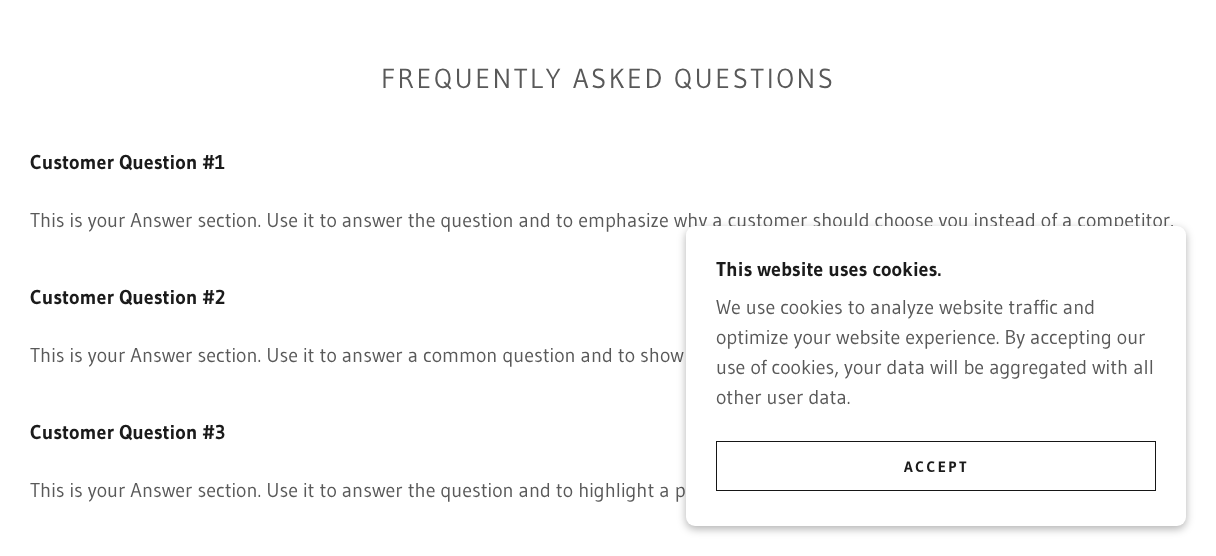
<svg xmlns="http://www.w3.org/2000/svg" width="1216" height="556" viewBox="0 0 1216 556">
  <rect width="100%" height="100%" fill="rgb(255,255,255)"/>
  <text x="381" y="88" font-family="Gudea" font-size="27.5" letter-spacing="2.5" fill="rgb(89,89,89)">FREQUENTLY ASKED QUESTIONS</text>
  <text x="30" y="169" font-family="Gudea" font-size="20" font-weight="bold" fill="rgb(27,27,27)">Customer Question #1</text>
  <text x="30" y="227" font-family="Gudea" font-size="20" fill="rgb(89,89,89)">This is your Answer section. Use it to answer the question and to emphasize why a customer should choose you instead of a competitor.</text>
  <text x="30" y="304" font-family="Gudea" font-size="20" font-weight="bold" fill="rgb(27,27,27)">Customer Question #2</text>
  <text x="30" y="362" font-family="Gudea" font-size="20" fill="rgb(89,89,89)">This is your Answer section. Use it to answer a common question and to show</text>
  <text x="30" y="439" font-family="Gudea" font-size="20" font-weight="bold" fill="rgb(27,27,27)">Customer Question #3</text>
  <text x="30" y="497" font-family="Gudea" font-size="20" fill="rgb(89,89,89)">This is your Answer section. Use it to answer the question and to highlight a p</text>
  <rect x="686" y="229" width="500" height="300" rx="9" fill="rgba(0,0,0,0.3)" filter="blur(4px)"/>
  <rect x="686" y="226" width="500" height="300" rx="9" fill="rgb(255,255,255)"/>
  <text x="716" y="276" font-family="Gudea" font-size="20" font-weight="bold" fill="rgb(27,27,27)">This website uses cookies.</text>
  <g font-family="Gudea" font-size="20" fill="rgb(89,89,89)">
    <text>
      <tspan x="716" y="314">We use cookies to analyze website traffic and</tspan>
      <tspan x="716" y="344">optimize your website experience. By accepting our</tspan>
      <tspan x="716" y="374">use of cookies, your data will be aggregated with all</tspan>
      <tspan x="716" y="404">other user data.</tspan>
    </text>
  </g>
  <rect x="716.5" y="441.5" width="439" height="49" fill="none" stroke="rgb(22,22,22)"/>
  <text x="904" y="472" font-family="Gudea" font-size="15" font-weight="bold" letter-spacing="2.5" fill="rgb(27,27,27)">ACCEPT</text>
</svg>
